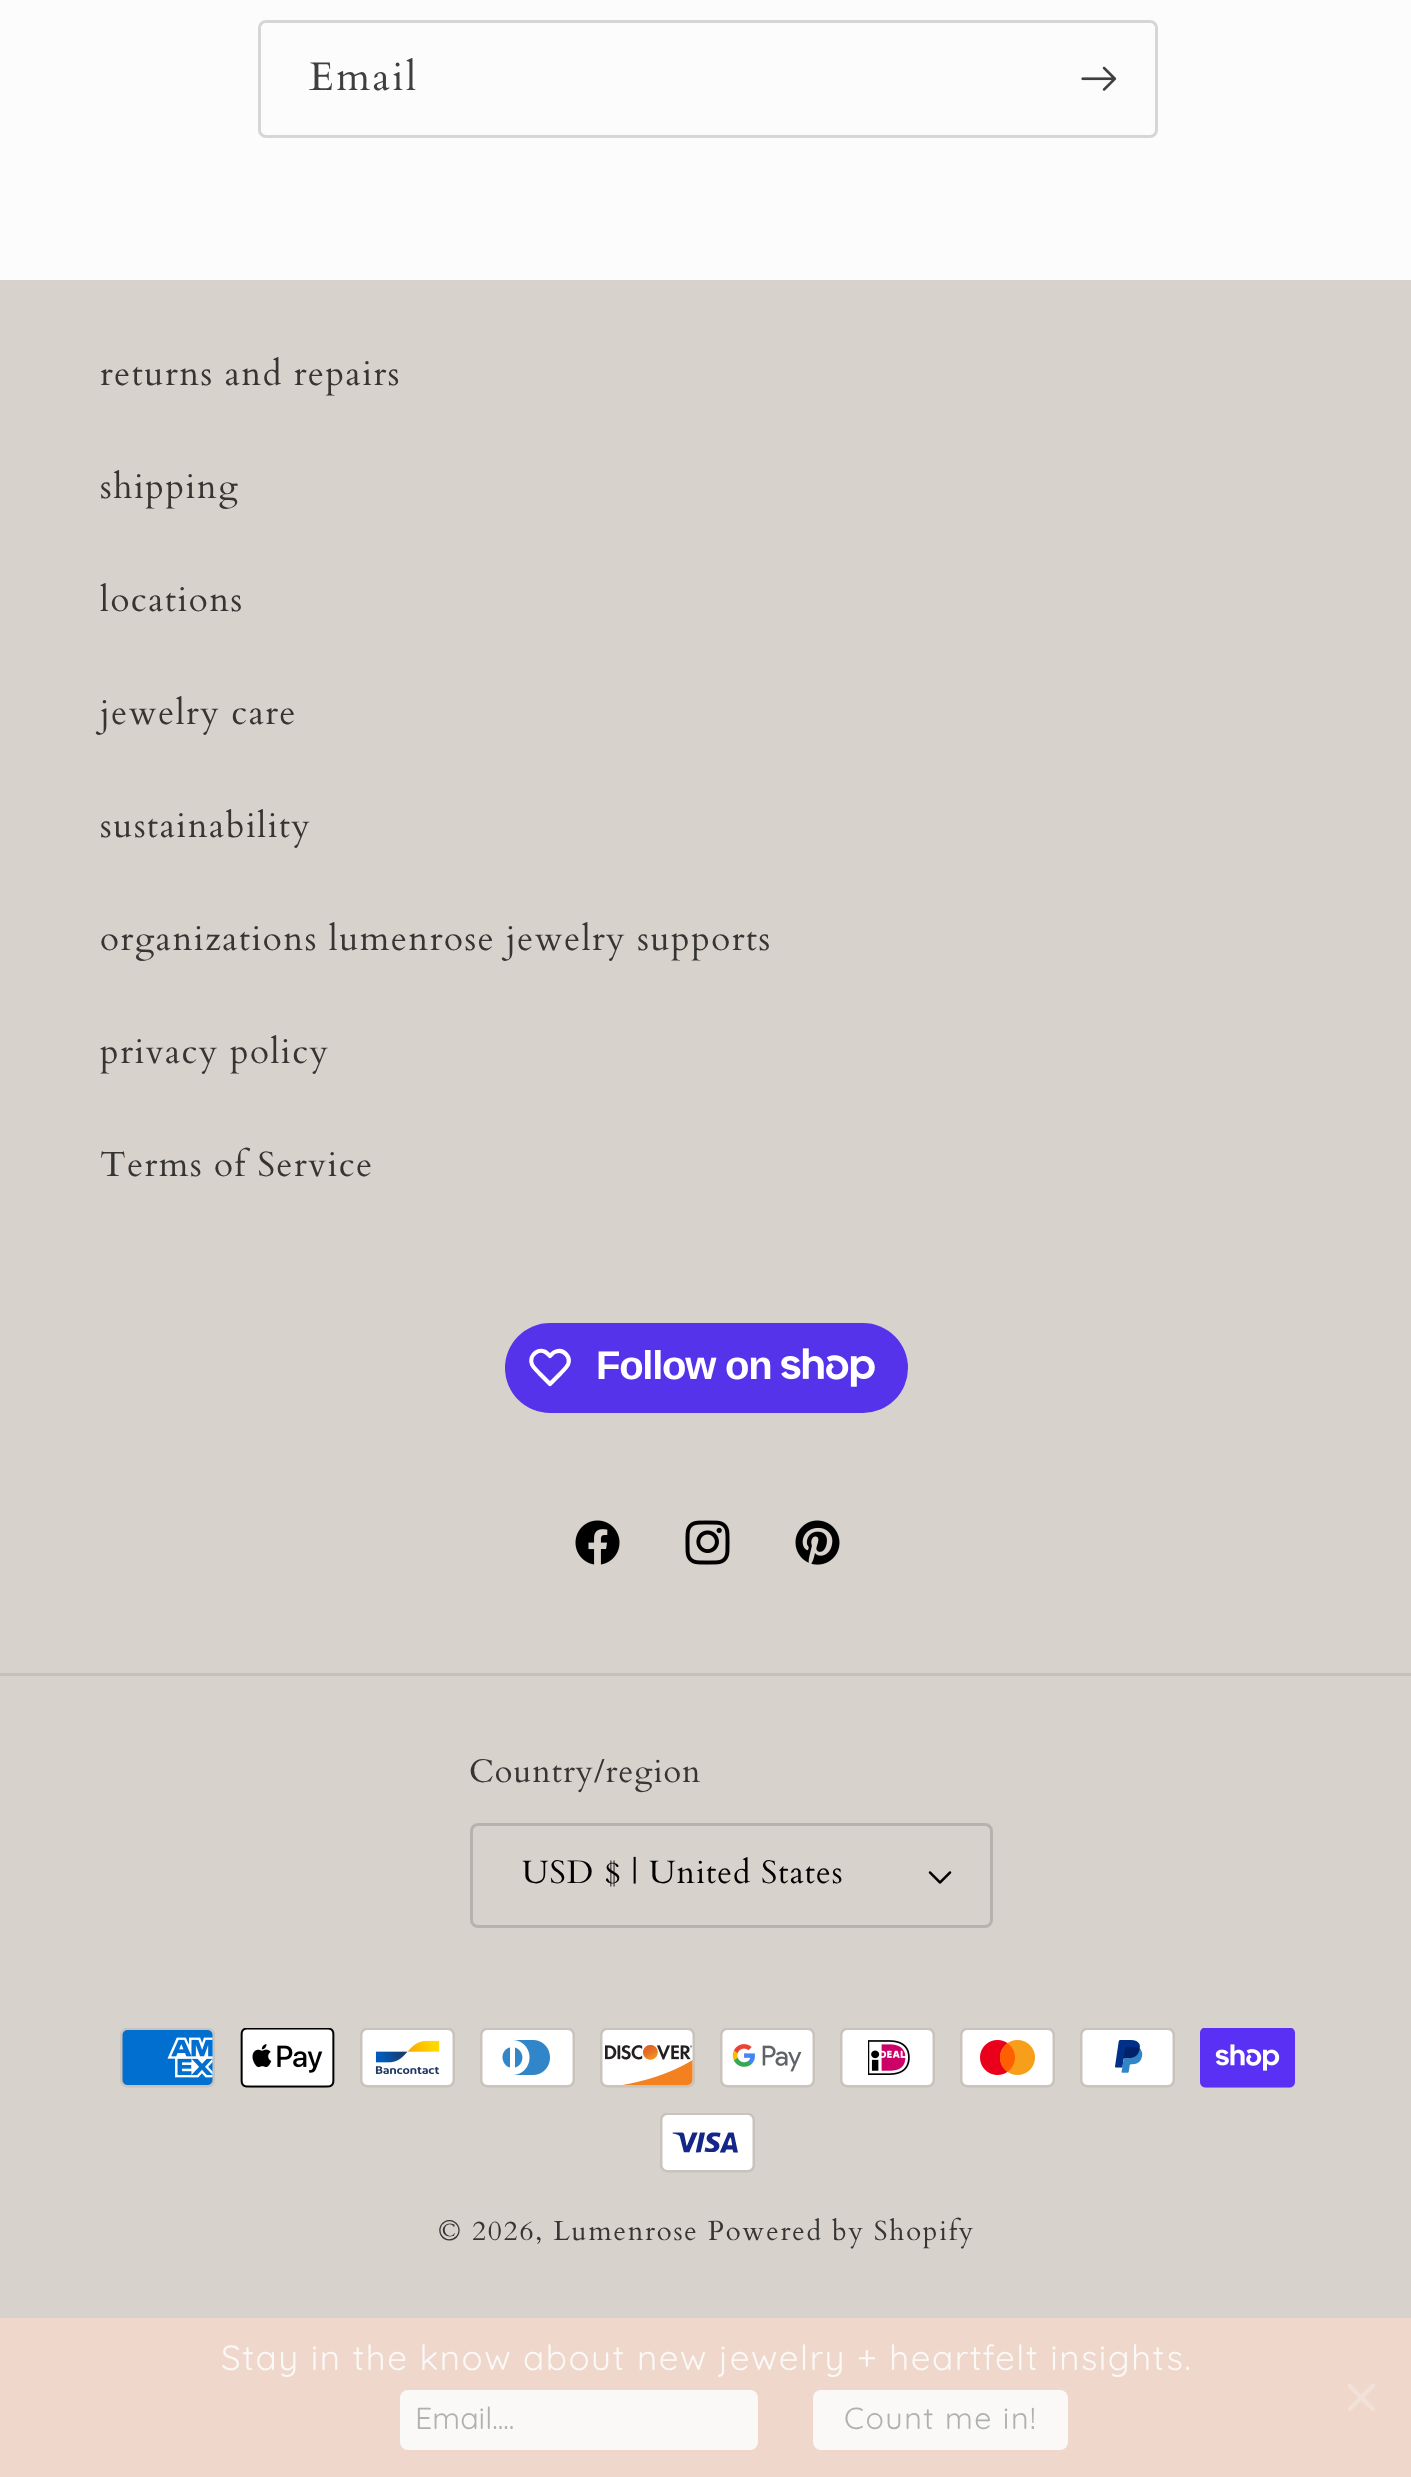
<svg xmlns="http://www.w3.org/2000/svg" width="1411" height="2477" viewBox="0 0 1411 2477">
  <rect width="100%" height="100%" fill="rgb(252,252,252)"/>
  <rect x="259.5" y="21.5" width="897" height="115" rx="6.5" fill="none" stroke="rgba(0,0,0,0.15)" stroke-width="3"/>
  <text x="309" y="90" font-family="Cardo" font-size="40" letter-spacing="2.5" fill="rgb(63,63,63)">Email</text>
  <image x="1081" y="66" width="36" height="25" href="pic1.png"/>
  <rect x="0" y="280" width="1411" height="2038" fill="rgb(216,210,204)"/>
  <g font-family="Cardo" font-size="35" letter-spacing="1.5" fill="rgb(54,53,51)">
    <text x="100" y="385">returns and repairs</text>
    <text x="100" y="498">shipping</text>
    <text x="100" y="611">locations</text>
    <text x="100" y="724">jewelry care</text>
    <text x="100" y="837">sustainability</text>
    <text x="100" y="950">organizations lumenrose jewelry supports</text>
    <text x="100" y="1063">privacy policy</text>
    <text x="100" y="1176">Terms of Service</text>
  </g>
  <rect x="505" y="1323" width="403" height="90" rx="45" fill="rgb(84,51,235)"/>
  <path d="M548 1354L550 1356C552 1354 553.5 1352 556 1351.5C564 1349 571 1357 568 1364.5C566.5 1368 563 1370.5 560.5 1373.5L550 1384L539.5 1373.5C537 1370.5 533.5 1368 532 1364.5C528 1354.5 540.5 1346 548 1354Z" fill="none" stroke="rgb(255,255,255)" stroke-width="4.2" stroke-linejoin="round"/>
  <text x="596" y="1379" font-family="Liberation Sans" font-size="40" font-weight="bold" letter-spacing="-1.25" fill="rgb(255,255,255)">Follow on</text>
  <image x="781" y="1348" width="94" height="39" href="pic2.png"/>
  <image x="575" y="1520" width="45" height="45" href="pic3.png"/>
  <image x="685" y="1520" width="45" height="45" href="pic4.png"/>
  <image x="795" y="1520" width="45" height="45" href="pic5.png"/>
  <rect x="0" y="1673" width="1411" height="3" fill="rgb(199,193,188)"/>
  <text x="469" y="1782" font-family="Cardo" font-size="32.5" letter-spacing="1" fill="rgb(54,53,51)">Country/region</text>
  <image x="928" y="1871" width="24" height="13" href="pic6.png"/>
  <rect x="471.5" y="1824.5" width="520" height="102" rx="6.5" fill="none" stroke="rgba(0,0,0,0.15)" stroke-width="3"/>
  <text x="522" y="1883" font-family="Cardo" font-size="32.5" letter-spacing="1" fill="rgb(0,0,0)">USD $ | United States</text>
  <image x="120" y="2028" width="95" height="60" href="pic7.png"/>
  <image x="240" y="2028" width="95" height="60" href="pic8.png"/>
  <image x="360" y="2028" width="95" height="60" href="pic9.png"/>
  <image x="480" y="2028" width="95" height="60" href="pic10.png"/>
  <image x="600" y="2028" width="95" height="60" href="pic11.png"/>
  <image x="720" y="2028" width="95" height="60" href="pic12.png"/>
  <image x="840" y="2028" width="95" height="60" href="pic13.png"/>
  <image x="960" y="2028" width="95" height="60" href="pic14.png"/>
  <image x="1080" y="2028" width="95" height="60" href="pic15.png"/>
  <image x="1200" y="2028" width="95" height="60" href="pic16.png"/>
  <image x="660" y="2113" width="95" height="60" href="pic17.png"/>
  <text x="438" y="2240" font-family="Cardo" font-size="27.5" letter-spacing="1.75" fill="rgb(54,53,51)">© 2026, Lumenrose Powered by Shopify</text>
  <rect x="0" y="2318" width="1411" height="159" fill="rgb(239,215,203)"/>
  <text x="221" y="2370" font-family="Quicksand" font-size="35" font-weight="300" letter-spacing="1.5" fill="rgb(250,249,248)">Stay in the know about new jewelry + heartfelt insights.</text>
  <rect x="400" y="2390" width="358" height="60" rx="8" fill="rgb(250,249,248)"/>
  <text x="415" y="2429" font-family="Quicksand" font-size="30.5" font-weight="300" fill="rgb(175,176,176)">Email....</text>
  <rect x="813" y="2390" width="255" height="60" rx="8" fill="rgb(250,249,248)"/>
  <text x="844" y="2429" font-family="Quicksand" font-size="30.5" font-weight="300" letter-spacing="1.5" fill="rgb(175,176,176)">Count me in!</text>
  <image x="1347" y="2384" width="28" height="27" href="pic18.png"/>
</svg>
